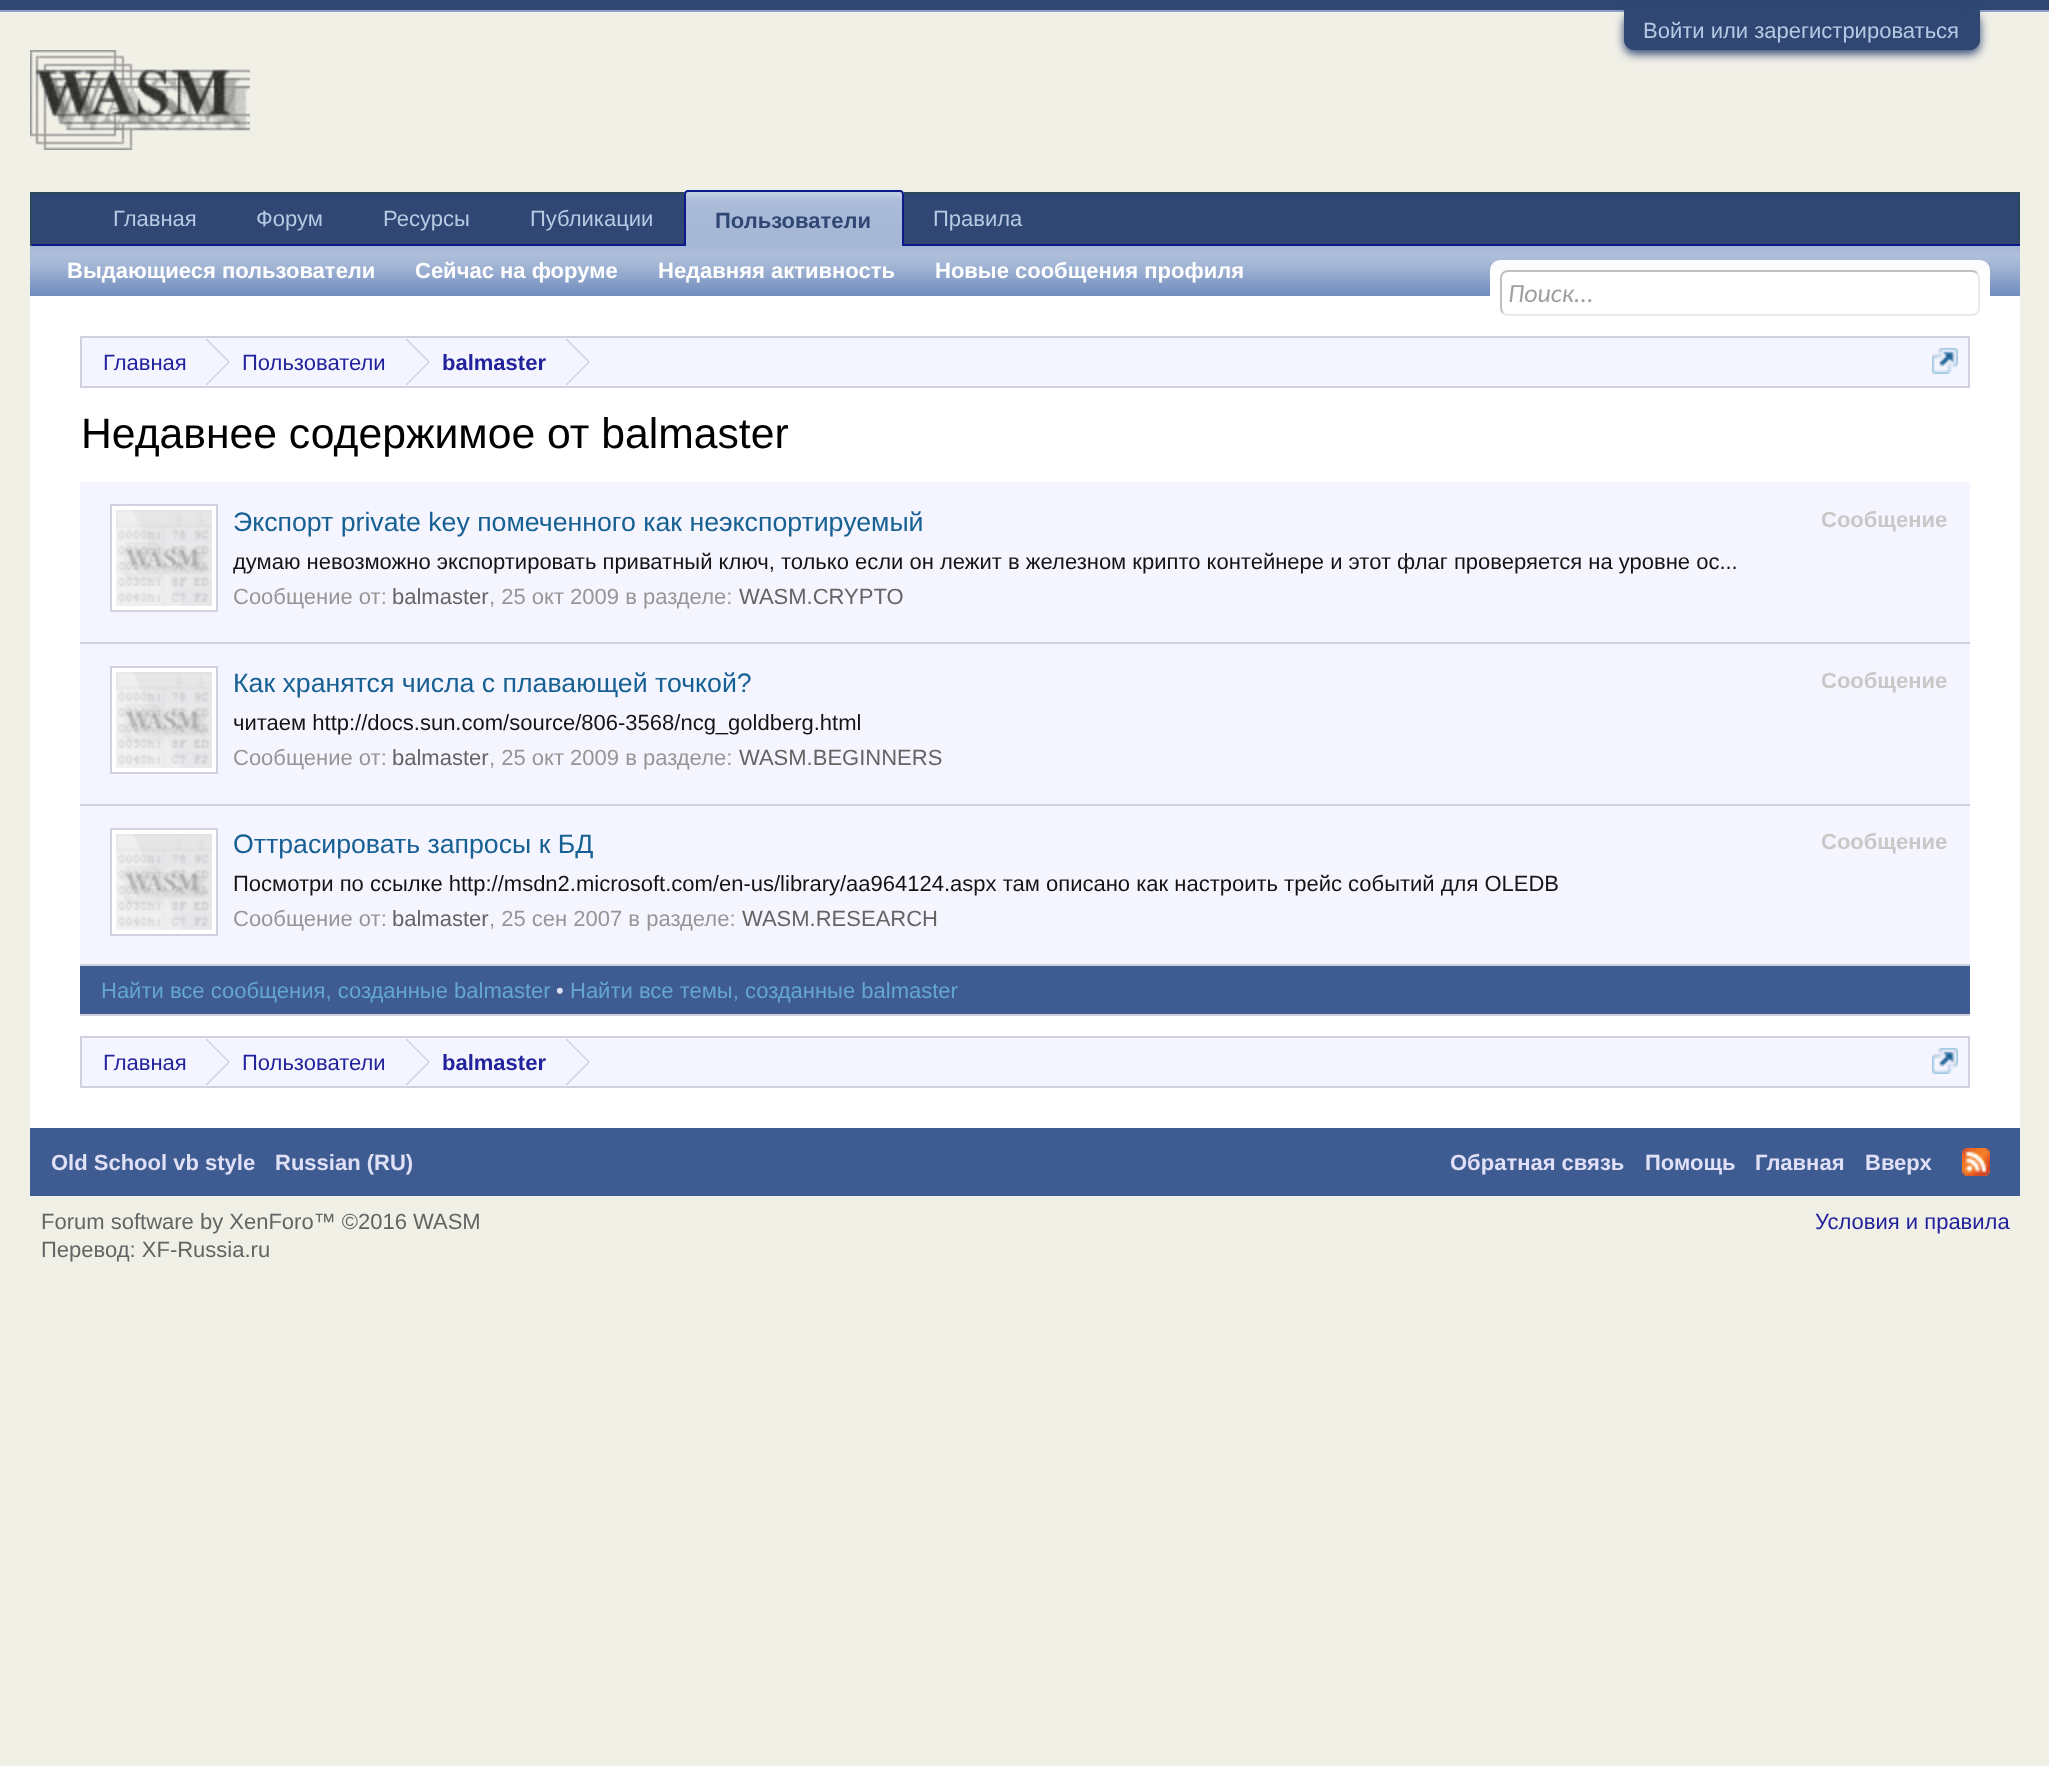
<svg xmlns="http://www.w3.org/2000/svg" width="2049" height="1766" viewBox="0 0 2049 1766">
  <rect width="100%" height="100%" fill="rgb(241,240,231)"/>
  <rect x="0" y="0" width="2049" height="10" fill="rgb(48,71,116)"/>
  <rect x="0" y="10" width="2049" height="2" fill="rgb(137,159,197)"/>
  <rect x="1624" y="14" width="356" height="40" rx="10" fill="rgb(48,71,116)" filter="blur(5px)"/>
  <path d="M1624 10H1980V40C1980 45.5 1975.5 50 1970 50H1634C1628.5 50 1624 45.5 1624 40Z" fill="rgb(48,71,116)"/>
  <text x="1643" y="38" font-family="Liberation Sans" font-size="22" fill="rgb(184,201,227)">Войти или зарегистрироваться</text>
  <image x="30" y="50" width="220" height="100" href="pic1.png"/>
  <rect x="32" y="194" width="1986" height="50" fill="rgb(48,71,116)"/>
  <rect x="30" y="192" width="1990" height="2" fill="rgb(43,72,92)"/>
  <rect x="2018" y="192" width="2" height="54" fill="rgb(43,72,92)"/>
  <rect x="30" y="244" width="1990" height="2" fill="rgb(11,25,140)"/>
  <rect x="30" y="192" width="2" height="54" fill="rgb(43,72,92)"/>
  <g font-family="Liberation Sans" font-size="22" fill="rgb(184,201,227)">
    <text x="113" y="226">Главная</text>
    <text x="256" y="226">Форум</text>
    <text x="383" y="226">Ресурсы</text>
    <text x="530" y="226">Публикации</text>
    <text x="933" y="226">Правила</text>
  </g>
  <path d="M688 190H900C902 190 904 192 904 194V248H684V194C684 192 686 190 688 190Z" fill="rgb(115,143,191)"/>
  <image x="684" y="192" width="220" height="54" href="pic2.png"/>
  <path d="M688 191H900C901.5 191 903 192.5 903 194V247H685V194C685 192.5 686.5 191 688 191Z" fill="none" stroke="rgb(11,25,140)" stroke-width="2"/>
  <text x="715" y="228" font-family="Liberation Sans" font-size="22" font-weight="bold" fill="rgb(48,71,116)">Пользователи</text>
  <rect x="30" y="246" width="1990" height="50" fill="rgb(115,143,191)"/>
  <image x="30" y="246" width="1990" height="47" href="pic3.png"/>
  <g font-family="Liberation Sans" font-size="22" font-weight="bold" fill="rgb(255,255,255)">
    <text x="67" y="278">Выдающиеся пользователи</text>
    <text x="415" y="278">Сейчас на форуме</text>
    <text x="658" y="278">Недавняя активность</text>
    <text x="935" y="278">Новые сообщения профиля</text>
  </g>
  <rect x="30" y="296" width="1990" height="832" fill="rgb(255,255,255)"/>
  <rect x="1490" y="260" width="500" height="56" rx="10" fill="rgb(252,252,255)"/>
  <rect x="1490" y="270" width="500" height="46" fill="rgb(255,255,255)"/>
  <path d="M1977 273C1978.5 274.5 1979 276 1979 278V308C1979 310 1978.5 311.5 1977 313C1975.5 314.5 1974 315 1972 315H1508C1506 315 1504.5 314.5 1503 313" fill="none" stroke="rgb(233,233,233)" stroke-width="2"/>
  <path d="M1503 313C1501.5 311.5 1501 310 1501 308V278C1501 276 1501.5 274.5 1503 273C1504.5 271.5 1506 271 1508 271H1972C1974 271 1975.5 271.5 1977 273" fill="none" stroke="rgb(192,192,192)" stroke-width="2"/>
  <text x="1508" y="302" font-family="Carlito" font-size="26" font-style="italic" fill="rgb(160,160,160)">Поиск...</text>
  <rect x="81" y="337" width="1888" height="50" fill="rgb(245,245,255)" stroke="rgb(209,209,225)" stroke-width="2"/>
  <text x="103" y="370" font-family="Liberation Sans" font-size="22" fill="rgb(34,34,156)">Главная</text>
  <path d="M206 386V338L230 362Z" fill="rgb(209,209,225)"/>
  <path d="M204 386V338L228 362Z" fill="rgb(245,245,255)"/>
  <text x="242" y="370" font-family="Liberation Sans" font-size="22" fill="rgb(34,34,156)">Пользователи</text>
  <path d="M406 386V338L430 362Z" fill="rgb(209,209,225)"/>
  <path d="M404 386V338L428 362Z" fill="rgb(245,245,255)"/>
  <text x="442" y="370" font-family="Liberation Sans" font-size="22" font-weight="bold" fill="rgb(34,34,156)">balmaster</text>
  <path d="M566 386V338L590 362Z" fill="rgb(209,209,225)"/>
  <path d="M564 386V338L588 362Z" fill="rgb(245,245,255)"/>
  <image x="1932" y="348" width="26" height="26" href="pic4.png"/>
  <text x="81" y="448" font-family="Liberation Sans" font-size="42.7" fill="rgb(0,0,0)">Недавнее содержимое от balmaster</text>
  <rect x="80" y="482" width="1890" height="160" fill="rgb(245,245,255)"/>
  <rect x="80" y="642" width="1890" height="2" fill="rgb(209,209,225)"/>
  <rect x="111" y="505" width="106" height="106" fill="rgb(255,255,255)" stroke="rgb(209,209,225)" stroke-width="2"/>
  <image x="116" y="510" width="96" height="96" href="pic5.png"/>
  <text x="233" y="531" font-family="Liberation Sans" font-size="26.7" fill="rgb(23,96,147)">Экспорт private key помеченного как неэкспортируемый</text>
  <text x="1821" y="527" font-family="Liberation Sans" font-size="22" font-weight="bold" fill="rgb(200,200,200)">Сообщение</text>
  <text x="233" y="569" font-family="Liberation Sans" font-size="22" fill="rgb(20,20,20)">думаю невозможно экспортировать приватный ключ, только если он лежит в железном крипто контейнере и этот флаг проверяется на уровне ос...</text>
  <text x="233" y="604" font-family="Liberation Sans" font-size="22" fill="rgb(150,150,150)">Сообщение от:</text>
  <text x="392" y="604" font-family="Liberation Sans" font-size="22" fill="rgb(100,100,100)">balmaster</text>
  <text x="489" y="604" font-family="Liberation Sans" font-size="22" fill="rgb(150,150,150)">, 25 окт 2009 в разделе:</text>
  <text x="739" y="604" font-family="Liberation Sans" font-size="22" fill="rgb(100,100,100)">WASM.CRYPTO</text>
  <rect x="80" y="644" width="1890" height="160" fill="rgb(245,245,255)"/>
  <rect x="80" y="804" width="1890" height="2" fill="rgb(209,209,225)"/>
  <rect x="111" y="667" width="106" height="106" fill="rgb(255,255,255)" stroke="rgb(209,209,225)" stroke-width="2"/>
  <image x="116" y="672" width="96" height="96" href="pic5.png"/>
  <text x="233" y="692" font-family="Liberation Sans" font-size="26.7" fill="rgb(23,96,147)">Как хранятся числа с плавающей точкой?</text>
  <text x="1821" y="688" font-family="Liberation Sans" font-size="22" font-weight="bold" fill="rgb(200,200,200)">Сообщение</text>
  <text x="233" y="730" font-family="Liberation Sans" font-size="22" fill="rgb(20,20,20)">читаем http://docs.sun.com/source/806-3568/ncg_goldberg.html</text>
  <text x="233" y="765" font-family="Liberation Sans" font-size="22" fill="rgb(150,150,150)">Сообщение от:</text>
  <text x="392" y="765" font-family="Liberation Sans" font-size="22" fill="rgb(100,100,100)">balmaster</text>
  <text x="489" y="765" font-family="Liberation Sans" font-size="22" fill="rgb(150,150,150)">, 25 окт 2009 в разделе:</text>
  <text x="739" y="765" font-family="Liberation Sans" font-size="22" fill="rgb(100,100,100)">WASM.BEGINNERS</text>
  <rect x="80" y="806" width="1890" height="158" fill="rgb(245,245,255)"/>
  <rect x="80" y="964" width="1890" height="2" fill="rgb(209,209,225)"/>
  <rect x="111" y="829" width="106" height="106" fill="rgb(255,255,255)" stroke="rgb(209,209,225)" stroke-width="2"/>
  <image x="116" y="834" width="96" height="96" href="pic5.png"/>
  <text x="233" y="853" font-family="Liberation Sans" font-size="26.7" fill="rgb(23,96,147)">Оттрасировать запросы к БД</text>
  <text x="1821" y="849" font-family="Liberation Sans" font-size="22" font-weight="bold" fill="rgb(200,200,200)">Сообщение</text>
  <text x="233" y="891" font-family="Liberation Sans" font-size="22" fill="rgb(20,20,20)">Посмотри по ссылке http://msdn2.microsoft.com/en-us/library/aa964124.aspx там описано как настроить трейс событий для OLEDB</text>
  <text x="233" y="926" font-family="Liberation Sans" font-size="22" fill="rgb(150,150,150)">Сообщение от:</text>
  <text x="392" y="926" font-family="Liberation Sans" font-size="22" fill="rgb(100,100,100)">balmaster</text>
  <text x="489" y="926" font-family="Liberation Sans" font-size="22" fill="rgb(150,150,150)">, 25 сен 2007 в разделе:</text>
  <text x="742" y="926" font-family="Liberation Sans" font-size="22" fill="rgb(100,100,100)">WASM.RESEARCH</text>
  <rect x="80" y="966" width="1890" height="48" fill="rgb(62,92,146)"/>
  <rect x="80" y="1014" width="1890" height="2" fill="rgb(209,209,225)"/>
  <text x="101" y="998" font-family="Liberation Sans" font-size="22" fill="rgb(101,165,209)">Найти все сообщения, созданные balmaster</text>
  <text x="556" y="998" font-family="Liberation Sans" font-size="22" fill="rgb(224,224,246)">•</text>
  <text x="570" y="998" font-family="Liberation Sans" font-size="22" fill="rgb(101,165,209)">Найти все темы, созданные balmaster</text>
  <rect x="81" y="1037" width="1888" height="50" fill="rgb(245,245,255)" stroke="rgb(209,209,225)" stroke-width="2"/>
  <text x="103" y="1070" font-family="Liberation Sans" font-size="22" fill="rgb(34,34,156)">Главная</text>
  <path d="M206 1086V1038L230 1062Z" fill="rgb(209,209,225)"/>
  <path d="M204 1086V1038L228 1062Z" fill="rgb(245,245,255)"/>
  <text x="242" y="1070" font-family="Liberation Sans" font-size="22" fill="rgb(34,34,156)">Пользователи</text>
  <path d="M406 1086V1038L430 1062Z" fill="rgb(209,209,225)"/>
  <path d="M404 1086V1038L428 1062Z" fill="rgb(245,245,255)"/>
  <text x="442" y="1070" font-family="Liberation Sans" font-size="22" font-weight="bold" fill="rgb(34,34,156)">balmaster</text>
  <path d="M566 1086V1038L590 1062Z" fill="rgb(209,209,225)"/>
  <path d="M564 1086V1038L588 1062Z" fill="rgb(245,245,255)"/>
  <image x="1932" y="1048" width="26" height="26" href="pic4.png"/>
  <rect x="30" y="1128" width="1990" height="68" fill="rgb(62,92,146)"/>
  <g font-family="Liberation Sans" font-size="22" font-weight="bold" fill="rgb(224,224,246)">
    <text x="51" y="1170">Old School vb style</text>
    <text x="275" y="1170">Russian (RU)</text>
    <text x="1450" y="1170">Обратная связь</text>
    <text x="1645" y="1170">Помощь</text>
    <text x="1755" y="1170">Главная</text>
    <text x="1865" y="1170">Вверх</text>
  </g>
  <image x="1962" y="1148" width="28" height="28" href="pic6.png"/>
  <g font-family="Liberation Sans" font-size="22" fill="rgb(100,100,100)">
    <text>
      <tspan x="41" y="1229">Forum software by XenForo™ ©2016 WASM</tspan>
      <tspan x="41" y="1257">Перевод: XF-Russia.ru</tspan>
    </text>
  </g>
  <text x="1815" y="1229" font-family="Liberation Sans" font-size="22" fill="rgb(34,34,156)">Условия и правила</text>
</svg>
